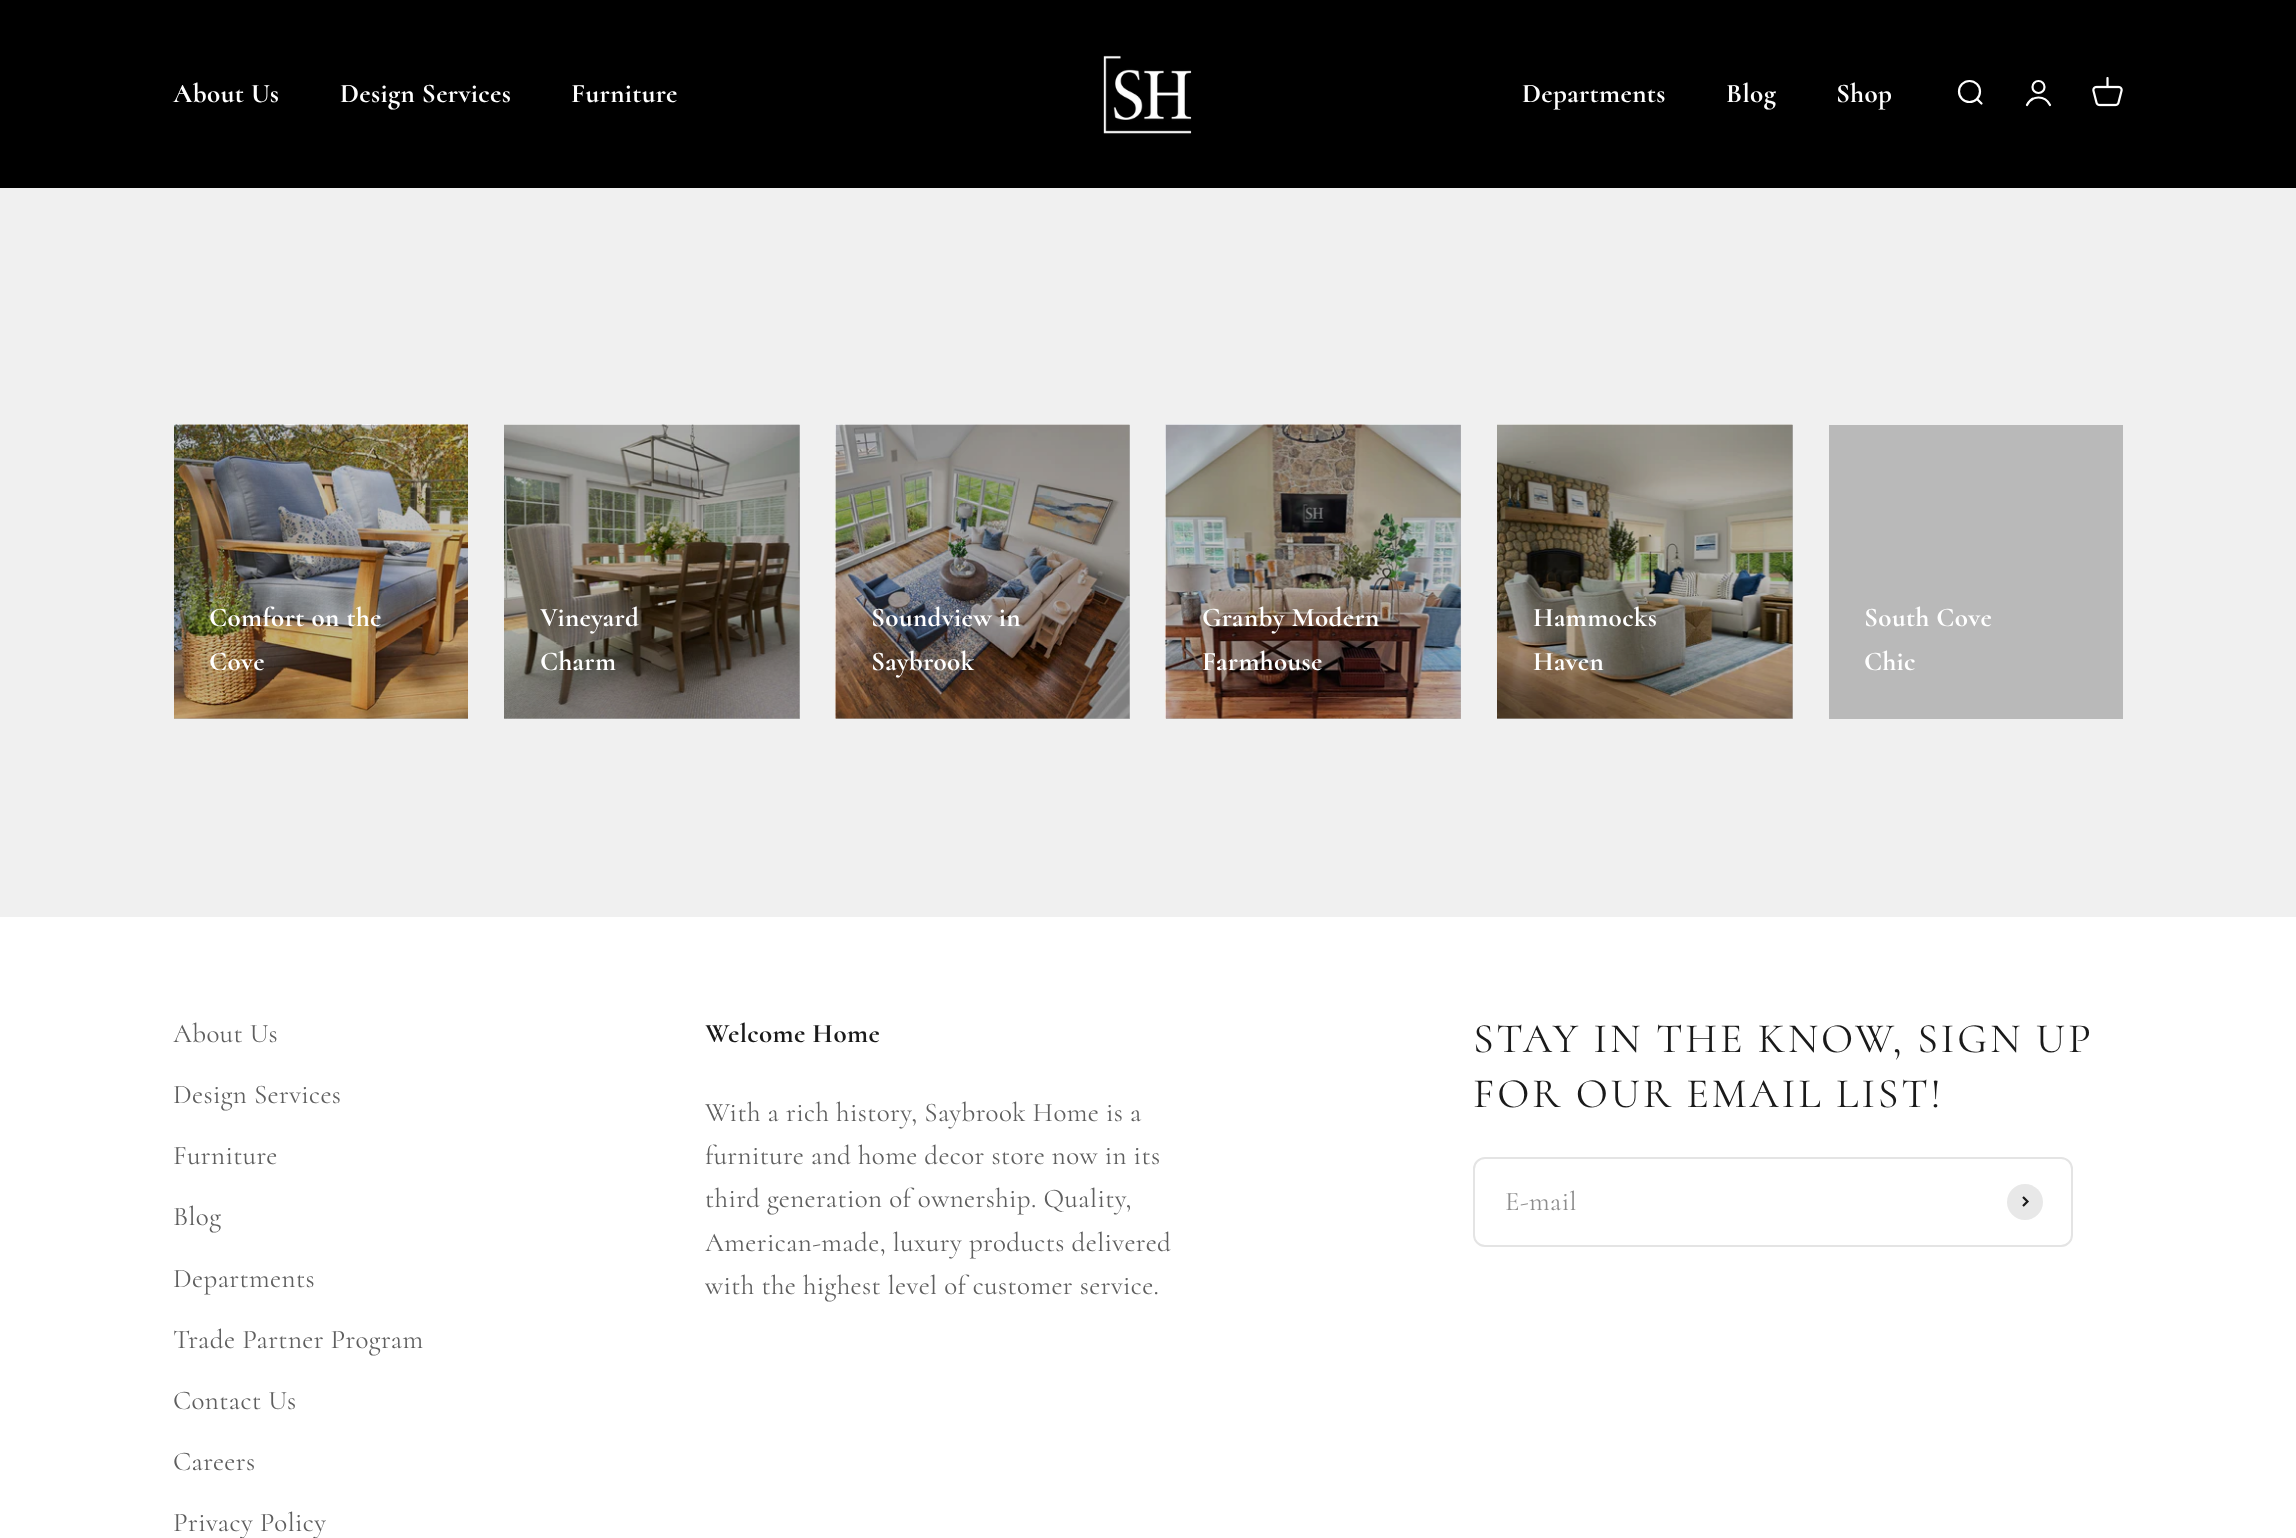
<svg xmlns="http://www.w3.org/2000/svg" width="2296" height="1538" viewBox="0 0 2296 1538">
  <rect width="100%" height="100%" fill="rgb(240,240,240)"/>
  <rect x="1497" y="425" width="296" height="294" fill="rgb(185,185,185)"/>
  <rect x="1166" y="425" width="295" height="294" fill="rgb(185,185,185)"/>
  <rect x="836" y="425" width="294" height="294" fill="rgb(185,185,185)"/>
  <rect x="504" y="425" width="296" height="294" fill="rgb(185,185,185)"/>
  <rect x="174" y="718" width="294" height="1" fill="rgb(182,182,182)"/>
  <rect x="0" y="0" width="2296" height="188" fill="rgb(0,0,0)"/>
  <g font-family="Cormorant" font-size="27" font-weight="bold" letter-spacing="0.4" fill="rgb(255,255,255)">
    <text x="173" y="102">About Us</text>
    <text x="340" y="102">Design Services</text>
    <text x="571" y="102">Furniture</text>
  </g>
  <image x="1103" y="55" width="89" height="79" href="pic1.png"/>
  <g font-family="Cormorant" font-size="27" font-weight="bold" letter-spacing="0.4" fill="rgb(255,255,255)">
    <text x="1522" y="102">Departments</text>
    <text x="1726" y="102">Blog</text>
    <text x="1836" y="102">Shop</text>
  </g>
  <circle cx="1969.5" cy="91.5" r="10.5" fill="none" stroke="rgb(255,255,255)" stroke-width="2.2"/>
  <path d="M1977 99L1981.5 103.5" fill="none" stroke="rgb(255,255,255)" stroke-width="2.2" stroke-linecap="round" stroke-linejoin="round"/>
  <circle cx="2038.5" cy="87" r="6" fill="none" stroke="rgb(255,255,255)" stroke-width="2.2"/>
  <path d="M2027 105C2032 95 2045 95 2050 105" fill="none" stroke="rgb(255,255,255)" stroke-width="2.2" stroke-linecap="round"/>
  <image x="2092" y="77" width="31" height="30" href="pic2.png"/>
  <image x="174" y="424" width="294" height="295" href="pic3.png"/>
  <g font-family="Cormorant" font-size="27" font-weight="bold" letter-spacing="0.4" fill="rgb(255,255,255)">
    <text>
      <tspan x="209" y="626">Comfort on the</tspan>
      <tspan x="209" y="670">Cove</tspan>
    </text>
  </g>
  <image x="504" y="424" width="296" height="295" href="pic4.png"/>
  <g font-family="Cormorant" font-size="27" font-weight="bold" letter-spacing="0.4" fill="rgb(255,255,255)">
    <text>
      <tspan x="540" y="626">Vineyard</tspan>
      <tspan x="540" y="670">Charm</tspan>
    </text>
  </g>
  <image x="835" y="424" width="295" height="295" href="pic5.png"/>
  <g font-family="Cormorant" font-size="27" font-weight="bold" letter-spacing="0.4" fill="rgb(255,255,255)">
    <text>
      <tspan x="871" y="626">Soundview in</tspan>
      <tspan x="871" y="670">Saybrook</tspan>
    </text>
  </g>
  <image x="1165" y="424" width="296" height="295" href="pic6.png"/>
  <g font-family="Cormorant" font-size="27" font-weight="bold" letter-spacing="0.4" fill="rgb(255,255,255)">
    <text>
      <tspan x="1202" y="626">Granby Modern</tspan>
      <tspan x="1202" y="670">Farmhouse</tspan>
    </text>
  </g>
  <image x="1497" y="424" width="296" height="295" href="pic7.png"/>
  <g font-family="Cormorant" font-size="27" font-weight="bold" letter-spacing="0.4" fill="rgb(255,255,255)">
    <text>
      <tspan x="1533" y="626">Hammocks</tspan>
      <tspan x="1533" y="670">Haven</tspan>
    </text>
  </g>
  <rect x="1829" y="425" width="294" height="294" fill="rgb(185,185,185)"/>
  <g font-family="Cormorant" font-size="27" font-weight="bold" letter-spacing="0.4" fill="rgb(255,255,255)">
    <text>
      <tspan x="1864" y="626">South Cove</tspan>
      <tspan x="1864" y="670">Chic</tspan>
    </text>
  </g>
  <rect x="0" y="917" width="2296" height="621" fill="rgb(255,255,255)"/>
  <g font-family="Cormorant" font-size="27" letter-spacing="0.4" fill="rgb(95,95,95)">
    <text x="173" y="1042">About Us</text>
    <text x="173" y="1103">Design Services</text>
    <text x="173" y="1164">Furniture</text>
    <text x="173" y="1225">Blog</text>
    <text x="173" y="1287">Departments</text>
    <text x="173" y="1348">Trade Partner Program</text>
    <text x="173" y="1409">Contact Us</text>
    <text x="173" y="1470">Careers</text>
    <text x="173" y="1531">Privacy Policy</text>
  </g>
  <text x="705" y="1042" font-family="Cormorant" font-size="27" font-weight="bold" letter-spacing="0.4" fill="rgb(26,26,26)">Welcome Home</text>
  <g font-family="Cormorant" font-size="27" letter-spacing="0.4" fill="rgb(95,95,95)">
    <text>
      <tspan x="705" y="1121">With a rich history, Saybrook Home is a</tspan>
      <tspan x="705" y="1164">furniture and home decor store now in its</tspan>
      <tspan x="705" y="1207">third generation of ownership. Quality,</tspan>
      <tspan x="705" y="1251">American-made, luxury products delivered</tspan>
      <tspan x="705" y="1294">with the highest level of customer service.</tspan>
    </text>
  </g>
  <g font-family="Cormorant" font-size="42" letter-spacing="2.75" fill="rgb(26,26,26)">
    <text>
      <tspan x="1473" y="1052">STAY IN THE KNOW, SIGN UP</tspan>
      <tspan x="1473" y="1107">FOR OUR EMAIL LIST!</tspan>
    </text>
  </g>
  <rect x="1474" y="1158" width="598" height="88" rx="11" fill="none" stroke="rgb(228,228,228)" stroke-width="2"/>
  <text x="1505" y="1210" font-family="Cormorant" font-size="27" letter-spacing="0.4" fill="rgb(141,141,141)">E-mail</text>
  <circle cx="2025" cy="1202" r="18" fill="rgb(232,232,232)"/>
  <path d="M2023 1206L2027.5 1201.5L2023 1197" fill="none" stroke="rgb(26,26,26)" stroke-width="2.2"/>
</svg>
